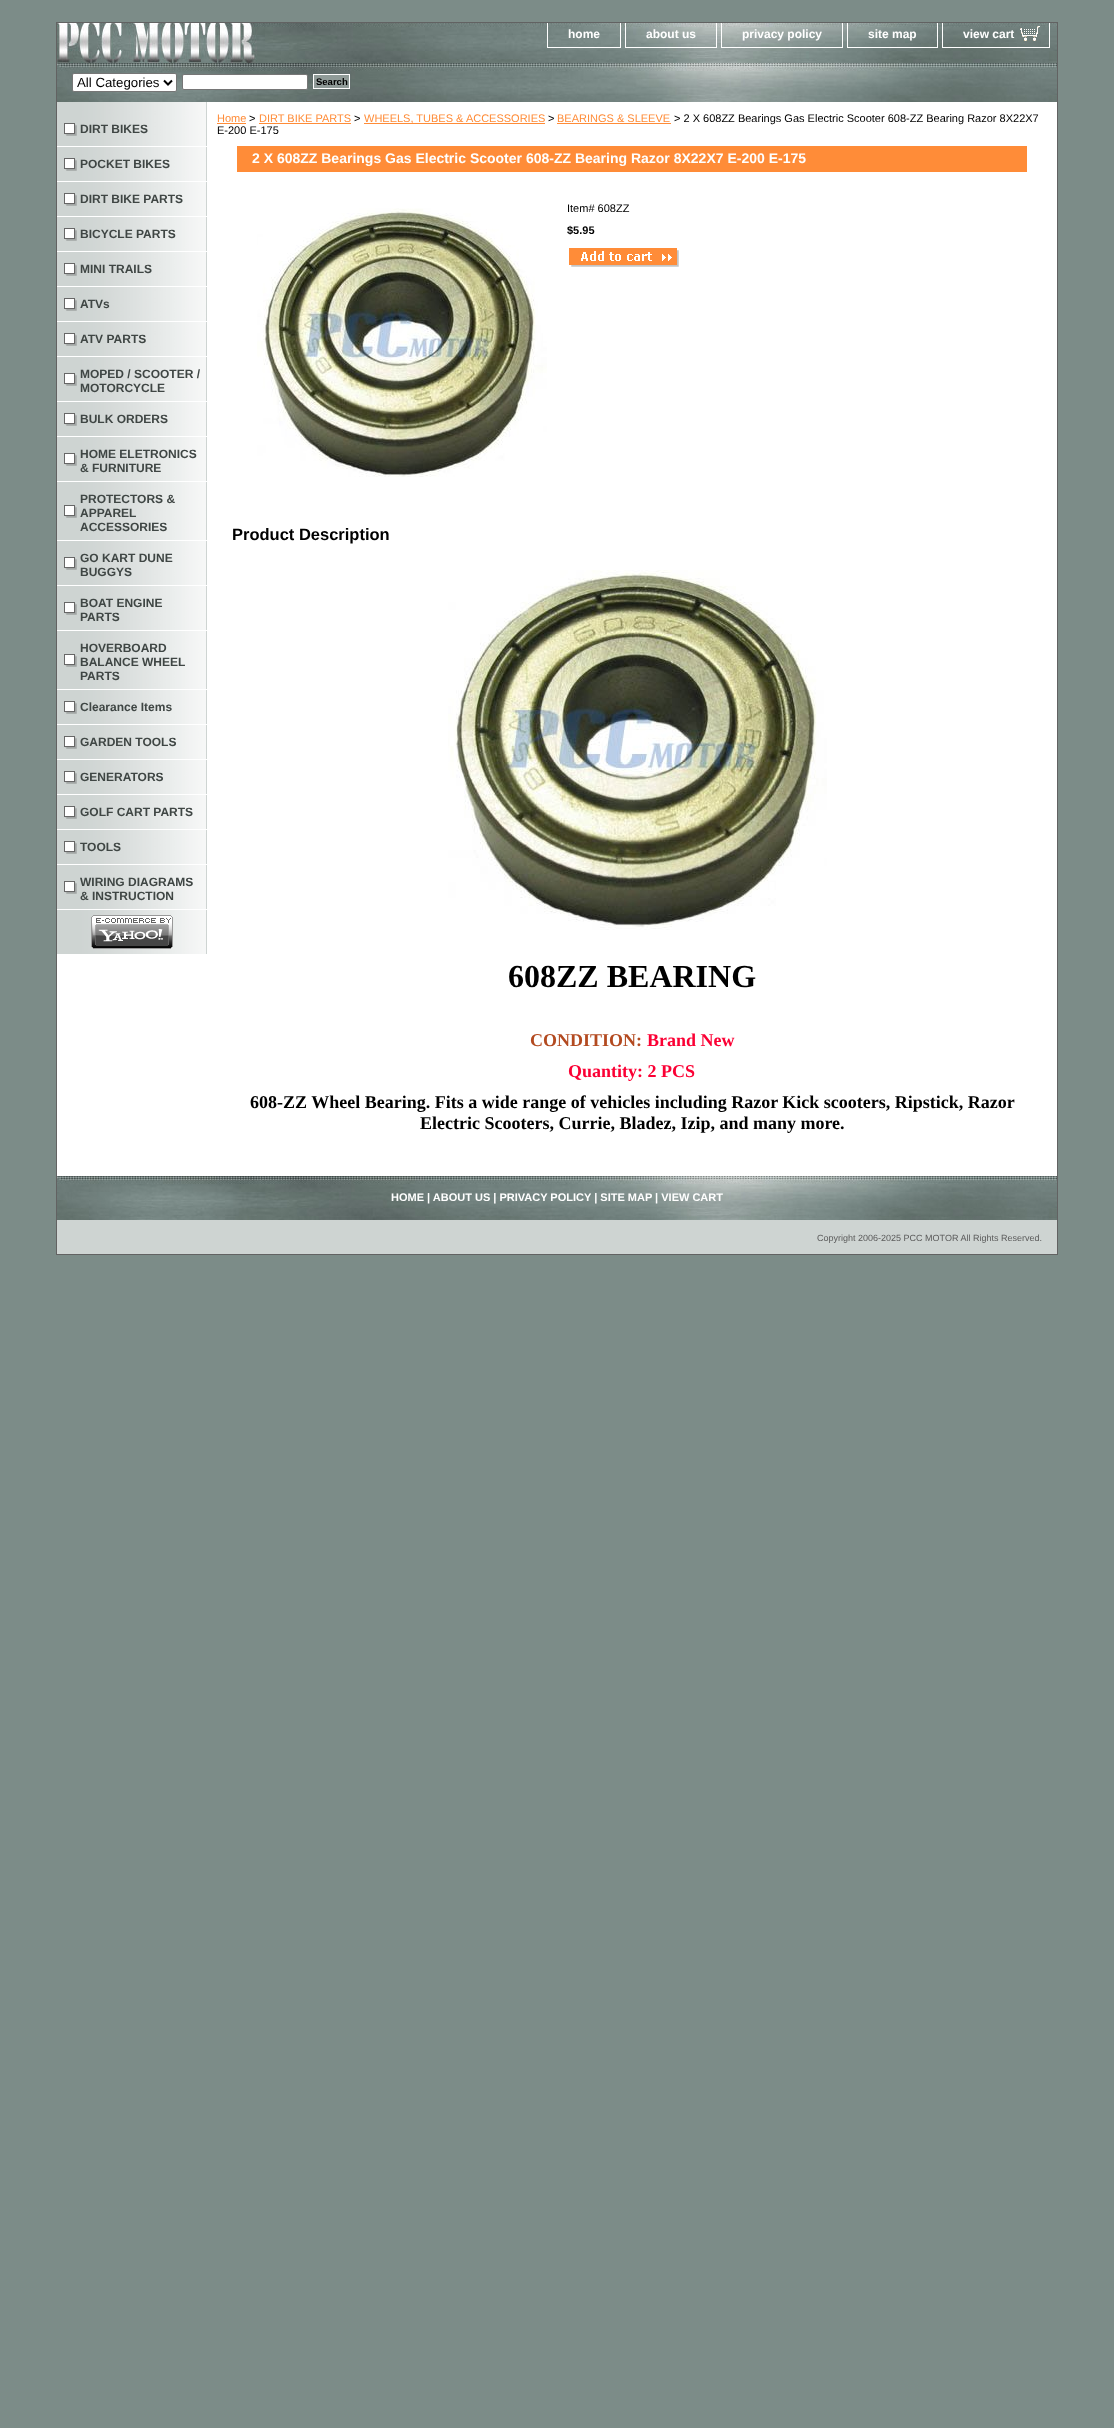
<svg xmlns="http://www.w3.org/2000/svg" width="1114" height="2428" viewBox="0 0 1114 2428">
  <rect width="100%" height="100%" fill="rgb(124,140,136)"/>
  <rect x="56.5" y="22.5" width="1001" height="1232" fill="none" stroke="rgb(98,98,98)"/>
  <image x="57" y="23" width="1000" height="40" href="pic1.png"/>
  <rect x="620" y="23" width="1" height="25" fill="rgb(255,255,255)"/>
  <rect x="547" y="47" width="74" height="1" fill="rgb(255,255,255)"/>
  <rect x="547" y="23" width="1" height="25" fill="rgb(255,255,255)"/>
  <text x="568" y="38" font-family="Liberation Sans" font-size="12" font-weight="bold" fill="rgb(255,255,255)">home</text>
  <rect x="716" y="23" width="1" height="25" fill="rgb(255,255,255)"/>
  <rect x="625" y="47" width="92" height="1" fill="rgb(255,255,255)"/>
  <rect x="625" y="23" width="1" height="25" fill="rgb(255,255,255)"/>
  <text x="646" y="38" font-family="Liberation Sans" font-size="12" font-weight="bold" fill="rgb(255,255,255)">about us</text>
  <rect x="842" y="23" width="1" height="25" fill="rgb(255,255,255)"/>
  <rect x="721" y="47" width="122" height="1" fill="rgb(255,255,255)"/>
  <rect x="721" y="23" width="1" height="25" fill="rgb(255,255,255)"/>
  <text x="742" y="38" font-family="Liberation Sans" font-size="12" font-weight="bold" fill="rgb(255,255,255)">privacy policy</text>
  <rect x="937" y="23" width="1" height="25" fill="rgb(255,255,255)"/>
  <rect x="847" y="47" width="91" height="1" fill="rgb(255,255,255)"/>
  <rect x="847" y="23" width="1" height="25" fill="rgb(255,255,255)"/>
  <text x="868" y="38" font-family="Liberation Sans" font-size="12" font-weight="bold" fill="rgb(255,255,255)">site map</text>
  <rect x="1049" y="23" width="1" height="25" fill="rgb(255,255,255)"/>
  <rect x="942" y="47" width="108" height="1" fill="rgb(255,255,255)"/>
  <rect x="942" y="23" width="1" height="25" fill="rgb(255,255,255)"/>
  <image x="1020" y="26" width="20" height="15" href="pic2.png"/>
  <text x="963" y="38" font-family="Liberation Sans" font-size="12" font-weight="bold" fill="rgb(255,255,255)">view cart</text>
  <image x="57" y="63" width="1000" height="39" href="pic3.png"/>
  <rect x="72.5" y="73.5" width="104" height="18" rx="1.5" fill="rgb(255,255,255)" stroke="rgb(118,118,118)"/>
  <path d="M164 80.5L168 84.5L172 80.5" fill="none" stroke="rgb(0,0,0)" stroke-width="2"/>
  <text x="77" y="87" font-family="Liberation Sans" font-size="13.25" fill="rgb(0,0,0)">All Categories</text>
  <rect x="182.5" y="74.5" width="125" height="15" rx="1.5" fill="rgb(255,255,255)" stroke="rgb(118,118,118)"/>
  <rect x="313.5" y="74.5" width="36" height="14" fill="rgb(144,155,152)" stroke="rgb(255,255,255)"/>
  <text x="316" y="85" font-family="Liberation Sans" font-size="9.5" font-weight="bold" fill="rgb(0,0,0)">Search</text>
  <rect x="57" y="102" width="1000" height="1074" fill="rgb(255,255,255)"/>
  <image x="57" y="102" width="150" height="852" href="pic4.png"/>
  <image x="64" y="123" width="13" height="13" href="pic5.png"/>
  <rect x="57" y="146" width="150" height="1" fill="rgb(255,255,255)"/>
  <text x="80" y="133" font-family="Liberation Sans" font-size="12" font-weight="bold" fill="rgb(63,70,68)">DIRT BIKES</text>
  <image x="64" y="158" width="13" height="13" href="pic5.png"/>
  <rect x="57" y="181" width="150" height="1" fill="rgb(255,255,255)"/>
  <text x="80" y="168" font-family="Liberation Sans" font-size="12" font-weight="bold" fill="rgb(63,70,68)">POCKET BIKES</text>
  <image x="64" y="193" width="13" height="13" href="pic5.png"/>
  <rect x="57" y="216" width="150" height="1" fill="rgb(255,255,255)"/>
  <text x="80" y="203" font-family="Liberation Sans" font-size="12" font-weight="bold" fill="rgb(63,70,68)">DIRT BIKE PARTS</text>
  <image x="64" y="228" width="13" height="13" href="pic5.png"/>
  <rect x="57" y="251" width="150" height="1" fill="rgb(255,255,255)"/>
  <text x="80" y="238" font-family="Liberation Sans" font-size="12" font-weight="bold" fill="rgb(63,70,68)">BICYCLE PARTS</text>
  <image x="64" y="263" width="13" height="13" href="pic5.png"/>
  <rect x="57" y="286" width="150" height="1" fill="rgb(255,255,255)"/>
  <text x="80" y="273" font-family="Liberation Sans" font-size="12" font-weight="bold" fill="rgb(63,70,68)">MINI TRAILS</text>
  <image x="64" y="298" width="13" height="13" href="pic5.png"/>
  <rect x="57" y="321" width="150" height="1" fill="rgb(255,255,255)"/>
  <text x="80" y="308" font-family="Liberation Sans" font-size="12" font-weight="bold" fill="rgb(63,70,68)">ATVs</text>
  <image x="64" y="333" width="13" height="13" href="pic5.png"/>
  <rect x="57" y="356" width="150" height="1" fill="rgb(255,255,255)"/>
  <text x="80" y="343" font-family="Liberation Sans" font-size="12" font-weight="bold" fill="rgb(63,70,68)">ATV PARTS</text>
  <image x="64" y="373" width="13" height="13" href="pic5.png"/>
  <rect x="57" y="401" width="150" height="1" fill="rgb(255,255,255)"/>
  <g font-family="Liberation Sans" font-size="12" font-weight="bold" fill="rgb(63,70,68)">
    <text>
      <tspan x="80" y="378">MOPED / SCOOTER /</tspan>
      <tspan x="80" y="392">MOTORCYCLE</tspan>
    </text>
  </g>
  <image x="64" y="413" width="13" height="13" href="pic5.png"/>
  <rect x="57" y="436" width="150" height="1" fill="rgb(255,255,255)"/>
  <text x="80" y="423" font-family="Liberation Sans" font-size="12" font-weight="bold" fill="rgb(63,70,68)">BULK ORDERS</text>
  <image x="64" y="453" width="13" height="13" href="pic5.png"/>
  <rect x="57" y="481" width="150" height="1" fill="rgb(255,255,255)"/>
  <g font-family="Liberation Sans" font-size="12" font-weight="bold" fill="rgb(63,70,68)">
    <text>
      <tspan x="80" y="458">HOME ELETRONICS</tspan>
      <tspan x="80" y="472">&amp; FURNITURE</tspan>
    </text>
  </g>
  <image x="64" y="505" width="13" height="13" href="pic5.png"/>
  <rect x="57" y="540" width="150" height="1" fill="rgb(255,255,255)"/>
  <g font-family="Liberation Sans" font-size="12" font-weight="bold" fill="rgb(63,70,68)">
    <text>
      <tspan x="80" y="503">PROTECTORS &amp;</tspan>
      <tspan x="80" y="517">APPAREL</tspan>
      <tspan x="80" y="531">ACCESSORIES</tspan>
    </text>
  </g>
  <image x="64" y="557" width="13" height="13" href="pic5.png"/>
  <rect x="57" y="585" width="150" height="1" fill="rgb(255,255,255)"/>
  <g font-family="Liberation Sans" font-size="12" font-weight="bold" fill="rgb(63,70,68)">
    <text>
      <tspan x="80" y="562">GO KART DUNE</tspan>
      <tspan x="80" y="576">BUGGYS</tspan>
    </text>
  </g>
  <image x="64" y="602" width="13" height="13" href="pic5.png"/>
  <rect x="57" y="630" width="150" height="1" fill="rgb(255,255,255)"/>
  <g font-family="Liberation Sans" font-size="12" font-weight="bold" fill="rgb(63,70,68)">
    <text>
      <tspan x="80" y="607">BOAT ENGINE</tspan>
      <tspan x="80" y="621">PARTS</tspan>
    </text>
  </g>
  <image x="64" y="654" width="13" height="13" href="pic5.png"/>
  <rect x="57" y="689" width="150" height="1" fill="rgb(255,255,255)"/>
  <g font-family="Liberation Sans" font-size="12" font-weight="bold" fill="rgb(63,70,68)">
    <text>
      <tspan x="80" y="652">HOVERBOARD</tspan>
      <tspan x="80" y="666">BALANCE WHEEL</tspan>
      <tspan x="80" y="680">PARTS</tspan>
    </text>
  </g>
  <image x="64" y="701" width="13" height="13" href="pic5.png"/>
  <rect x="57" y="724" width="150" height="1" fill="rgb(255,255,255)"/>
  <text x="80" y="711" font-family="Liberation Sans" font-size="12" font-weight="bold" fill="rgb(63,70,68)">Clearance Items</text>
  <image x="64" y="736" width="13" height="13" href="pic5.png"/>
  <rect x="57" y="759" width="150" height="1" fill="rgb(255,255,255)"/>
  <text x="80" y="746" font-family="Liberation Sans" font-size="12" font-weight="bold" fill="rgb(63,70,68)">GARDEN TOOLS</text>
  <image x="64" y="771" width="13" height="13" href="pic5.png"/>
  <rect x="57" y="794" width="150" height="1" fill="rgb(255,255,255)"/>
  <text x="80" y="781" font-family="Liberation Sans" font-size="12" font-weight="bold" fill="rgb(63,70,68)">GENERATORS</text>
  <image x="64" y="806" width="13" height="13" href="pic5.png"/>
  <rect x="57" y="829" width="150" height="1" fill="rgb(255,255,255)"/>
  <text x="80" y="816" font-family="Liberation Sans" font-size="12" font-weight="bold" fill="rgb(63,70,68)">GOLF CART PARTS</text>
  <image x="64" y="841" width="13" height="13" href="pic5.png"/>
  <rect x="57" y="864" width="150" height="1" fill="rgb(255,255,255)"/>
  <text x="80" y="851" font-family="Liberation Sans" font-size="12" font-weight="bold" fill="rgb(63,70,68)">TOOLS</text>
  <image x="64" y="881" width="13" height="13" href="pic5.png"/>
  <rect x="57" y="909" width="150" height="1" fill="rgb(255,255,255)"/>
  <g font-family="Liberation Sans" font-size="12" font-weight="bold" fill="rgb(63,70,68)">
    <text>
      <tspan x="80" y="886">WIRING DIAGRAMS</tspan>
      <tspan x="80" y="900">&amp; INSTRUCTION</tspan>
    </text>
  </g>
  <image x="91" y="915" width="82" height="34" href="pic6.png"/>
  <text x="217" y="122" font-family="Liberation Sans" font-size="11" fill="rgb(255,140,56)">Home</text>
  <rect x="217" y="123" width="29" height="1" fill="rgb(255,140,56)"/>
  <text x="249" y="122" font-family="Liberation Sans" font-size="11" fill="rgb(0,0,0)">&gt;</text>
  <text x="259" y="122" font-family="Liberation Sans" font-size="11" fill="rgb(255,140,56)">DIRT BIKE PARTS</text>
  <rect x="259" y="123" width="92" height="1" fill="rgb(255,140,56)"/>
  <text x="354" y="122" font-family="Liberation Sans" font-size="11" fill="rgb(0,0,0)">&gt;</text>
  <rect x="364" y="123" width="181" height="1" fill="rgb(255,140,56)"/>
  <text x="364" y="122" font-family="Liberation Sans" font-size="11" fill="rgb(255,140,56)">WHEELS, TUBES &amp; ACCESSORIES</text>
  <text x="548" y="122" font-family="Liberation Sans" font-size="11" fill="rgb(0,0,0)">&gt;</text>
  <text x="557" y="122" font-family="Liberation Sans" font-size="11" fill="rgb(255,140,56)">BEARINGS &amp; SLEEVE</text>
  <rect x="557" y="123" width="114" height="1" fill="rgb(255,140,56)"/>
  <g font-family="Liberation Sans" font-size="11" fill="rgb(0,0,0)">
    <text x="674" y="122">&gt; 2 X 608ZZ Bearings Gas Electric Scooter 608-ZZ Bearing Razor 8X22X7</text>
    <text x="217" y="134">E-200 E-175</text>
  </g>
  <rect x="237" y="146" width="790" height="26" fill="rgb(255,140,56)"/>
  <text x="252" y="163" font-family="Liberation Sans" font-size="14" font-weight="bold" fill="rgb(255,255,255)">2 X 608ZZ Bearings Gas Electric Scooter 608-ZZ Bearing Razor 8X22X7 E-200 E-175</text>
  <image x="257" y="208" width="290" height="269" href="pic7.png"/>
  <text x="567" y="212" font-family="Liberation Sans" font-size="11" fill="rgb(0,0,0)">Item# 608ZZ</text>
  <text x="567" y="234" font-family="Liberation Sans" font-size="11" font-weight="bold" fill="rgb(0,0,0)">$5.95</text>
  <image x="569" y="248" width="110" height="19" href="pic8.png"/>
  <text x="232" y="540" font-family="Liberation Sans" font-size="16.5" font-weight="bold" fill="rgb(0,0,0)">Product Description</text>
  <image x="448" y="570" width="379" height="360" href="pic9.png"/>
  <text x="508" y="987" font-family="Liberation Serif" font-size="32" font-weight="bold" fill="rgb(0,0,0)">608ZZ BEARING</text>
  <text x="530" y="1046" font-family="Liberation Serif" font-size="18" font-weight="bold" fill="rgb(179,74,32)">CONDITION:</text>
  <g font-family="Liberation Serif" font-size="18" font-weight="bold" fill="rgb(251,0,52)">
    <text x="647" y="1046">Brand New</text>
    <text x="568" y="1077">Quantity: 2 PCS</text>
  </g>
  <g font-family="Liberation Serif" font-size="18" font-weight="bold" fill="rgb(0,0,0)">
    <text x="250" y="1108">608-ZZ Wheel Bearing. Fits a wide range of vehicles including Razor Kick scooters, Ripstick, Razor</text>
    <text x="420" y="1129">Electric Scooters, Currie, Bladez, Izip, and many more.</text>
  </g>
  <rect x="57" y="1220" width="1000" height="34" fill="rgb(206,212,210)"/>
  <image x="57" y="1176" width="1000" height="44" href="pic10.png"/>
  <text x="391" y="1201" font-family="Liberation Sans" font-size="11" font-weight="bold" fill="rgb(255,255,255)">HOME | ABOUT US | PRIVACY POLICY | SITE MAP | VIEW CART</text>
  <text x="817" y="1241" font-family="Liberation Sans" font-size="9" fill="rgb(91,91,91)">Copyright 2006-2025 PCC MOTOR All Rights Reserved.</text>
</svg>
